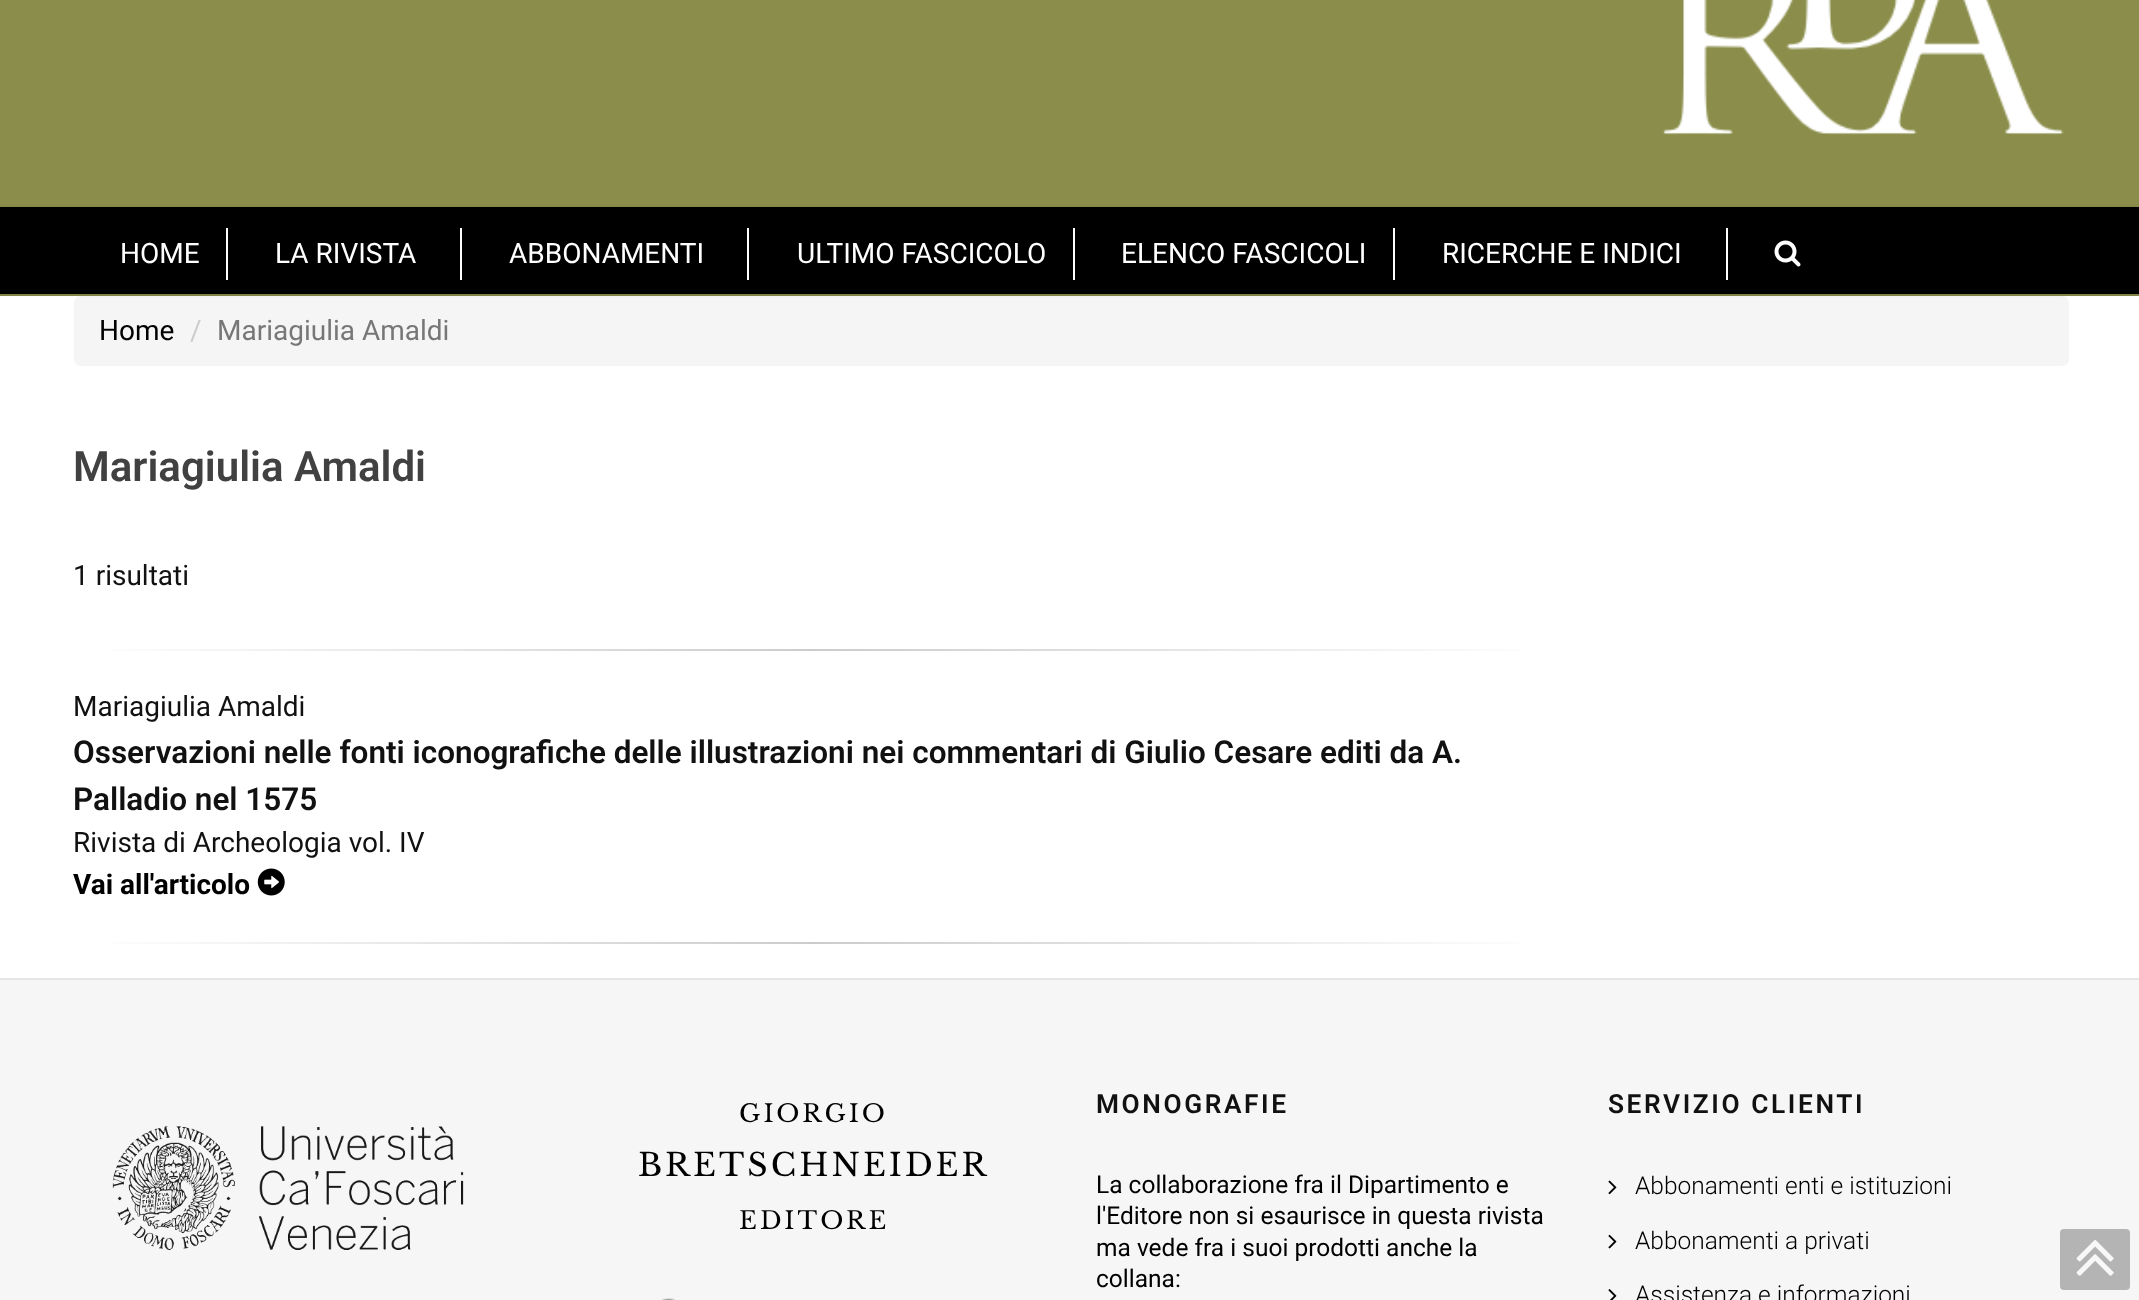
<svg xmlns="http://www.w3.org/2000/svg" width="2139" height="1300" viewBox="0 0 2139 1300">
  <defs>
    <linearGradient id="g1" gradientUnits="userSpaceOnUse" x1="74" y1="650" x2="1556" y2="650"><stop offset="0" stop-color="rgb(255,255,255)"/><stop offset="0.5" stop-color="rgb(204,204,204)"/><stop offset="1" stop-color="rgb(255,255,255)"/></linearGradient>
    <linearGradient id="g2" gradientUnits="userSpaceOnUse" x1="74" y1="942" x2="1556" y2="942"><stop offset="0" stop-color="rgb(255,255,255)"/><stop offset="0.5" stop-color="rgb(204,204,204)"/><stop offset="1" stop-color="rgb(255,255,255)"/></linearGradient>
  </defs>
  <rect width="100%" height="100%" fill="rgb(255,255,255)"/>
  <rect x="0" y="0" width="2139" height="207" fill="rgb(139,142,75)"/>
  <rect x="0" y="294" width="2139" height="2" fill="rgb(132,135,71)"/>
  <image x="1662" y="0" width="402" height="135" href="pic1.png"/>
  <rect x="74" y="296" width="1995" height="70" rx="7" fill="rgb(245,245,245)"/>
  <rect x="0" y="207" width="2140" height="87" fill="rgba(0,0,0,0.1)" filter="blur(2px)"/>
  <rect x="0" y="207" width="2139" height="87" fill="rgb(0,0,0)"/>
  <rect x="226" y="228" width="2" height="52" fill="rgb(255,255,255)"/>
  <text x="120" y="263" font-family="Roboto" font-size="28" fill="rgb(255,255,255)">HOME</text>
  <rect x="460" y="228" width="2" height="52" fill="rgb(255,255,255)"/>
  <text x="275" y="263" font-family="Roboto" font-size="28" fill="rgb(255,255,255)">LA RIVISTA</text>
  <rect x="747" y="228" width="2" height="52" fill="rgb(255,255,255)"/>
  <text x="509" y="263" font-family="Roboto" font-size="28" fill="rgb(255,255,255)">ABBONAMENTI</text>
  <rect x="1073" y="228" width="2" height="52" fill="rgb(255,255,255)"/>
  <text x="797" y="263" font-family="Roboto" font-size="28" fill="rgb(255,255,255)">ULTIMO FASCICOLO</text>
  <rect x="1393" y="228" width="2" height="52" fill="rgb(255,255,255)"/>
  <text x="1121" y="263" font-family="Roboto" font-size="28" fill="rgb(255,255,255)">ELENCO FASCICOLI</text>
  <rect x="1726" y="228" width="2" height="52" fill="rgb(255,255,255)"/>
  <text x="1442" y="263" font-family="Roboto" font-size="28" fill="rgb(255,255,255)">RICERCHE E INDICI</text>
  <image x="1774" y="240" width="27" height="27" href="pic2.png"/>
  <rect x="0" y="978" width="2139" height="2" fill="rgb(230,230,230)"/>
  <text x="99" y="340" font-family="Roboto" font-size="28" fill="rgb(0,0,0)">Home</text>
  <text x="190" y="340" font-family="Roboto" font-size="28" fill="rgb(204,204,204)">/</text>
  <text x="217" y="340" font-family="Roboto" font-size="28" fill="rgb(119,119,119)">Mariagiulia Amaldi</text>
  <text x="73" y="481" font-family="Roboto" font-size="42" font-weight="600" fill="rgb(65,65,65)">Mariagiulia Amaldi</text>
  <text x="73" y="585" font-family="Roboto" font-size="28" fill="rgb(17,17,17)">1 risultati</text>
  <rect x="110" y="649" width="1410" height="2" fill="url(#g1)"/>
  <text x="73" y="716" font-family="Roboto" font-size="28" fill="rgb(17,17,17)">Mariagiulia Amaldi</text>
  <g font-family="Roboto" font-size="31.5" font-weight="600" fill="rgb(17,17,17)">
    <text>
      <tspan x="73" y="763">Osservazioni nelle fonti iconografiche delle illustrazioni nei commentari di Giulio Cesare editi da A.</tspan>
      <tspan x="73" y="810">Palladio nel 1575</tspan>
    </text>
  </g>
  <text x="73" y="852" font-family="Roboto" font-size="28" fill="rgb(17,17,17)">Rivista di Archeologia vol. IV</text>
  <text x="73" y="894" font-family="Roboto" font-size="28" font-weight="bold" fill="rgb(0,0,0)">Vai all'articolo</text>
  <image x="257" y="868" width="28" height="28" href="pic3.png"/>
  <rect x="110" y="942" width="1410" height="2" fill="url(#g2)"/>
  <rect x="0" y="980" width="2139" height="320" fill="rgb(246,246,246)"/>
  <image x="112" y="1126" width="352" height="124" href="pic4.png"/>
  <text x="739" y="1122" font-family="Libre Baskerville" font-size="24.5" letter-spacing="3.1" fill="rgb(0,0,0)">GIORGIO</text>
  <text x="638" y="1176" font-family="Libre Baskerville" font-size="31.5" letter-spacing="3.1" fill="rgb(0,0,0)">BRETSCHNEIDER</text>
  <text x="739" y="1229" font-family="Libre Baskerville" font-size="24.5" letter-spacing="3.1" fill="rgb(0,0,0)">EDITORE</text>
  <image x="661" y="1298" width="15" height="2" href="pic5.png"/>
  <text x="1096" y="1113" font-family="Roboto" font-size="26.25" font-weight="600" letter-spacing="2.6" fill="rgb(17,17,17)">MONOGRAFIE</text>
  <g font-family="Roboto" font-size="24.5" fill="rgb(0,0,0)">
    <text>
      <tspan x="1096" y="1193">La collaborazione fra il Dipartimento e</tspan>
      <tspan x="1096" y="1224">l'Editore non si esaurisce in questa rivista</tspan>
      <tspan x="1096" y="1256">ma vede fra i suoi prodotti anche la</tspan>
      <tspan x="1096" y="1287">collana:</tspan>
    </text>
  </g>
  <text x="1608" y="1113" font-family="Roboto" font-size="26.25" font-weight="600" letter-spacing="2.6" fill="rgb(17,17,17)">SERVIZIO CLIENTI</text>
  <image x="1608" y="1180" width="9" height="15" href="pic6.png"/>
  <text x="1635" y="1194" font-family="Roboto" font-size="24.5" font-weight="300" fill="rgb(0,0,0)">Abbonamenti enti e istituzioni</text>
  <image x="1608" y="1234" width="9" height="15" href="pic7.png"/>
  <text x="1635" y="1249" font-family="Roboto" font-size="24.5" font-weight="300" fill="rgb(0,0,0)">Abbonamenti a privati</text>
  <image x="1608" y="1289" width="9" height="11" href="pic8.png"/>
  <text x="1635" y="1303" font-family="Roboto" font-size="24.5" font-weight="300" fill="rgb(0,0,0)">Assistenza e informazioni</text>
  <rect x="2060" y="1229" width="70" height="61" rx="4" fill="rgb(180,180,180)"/>
  <image x="2076" y="1240" width="38" height="36" href="pic9.png"/>
</svg>
